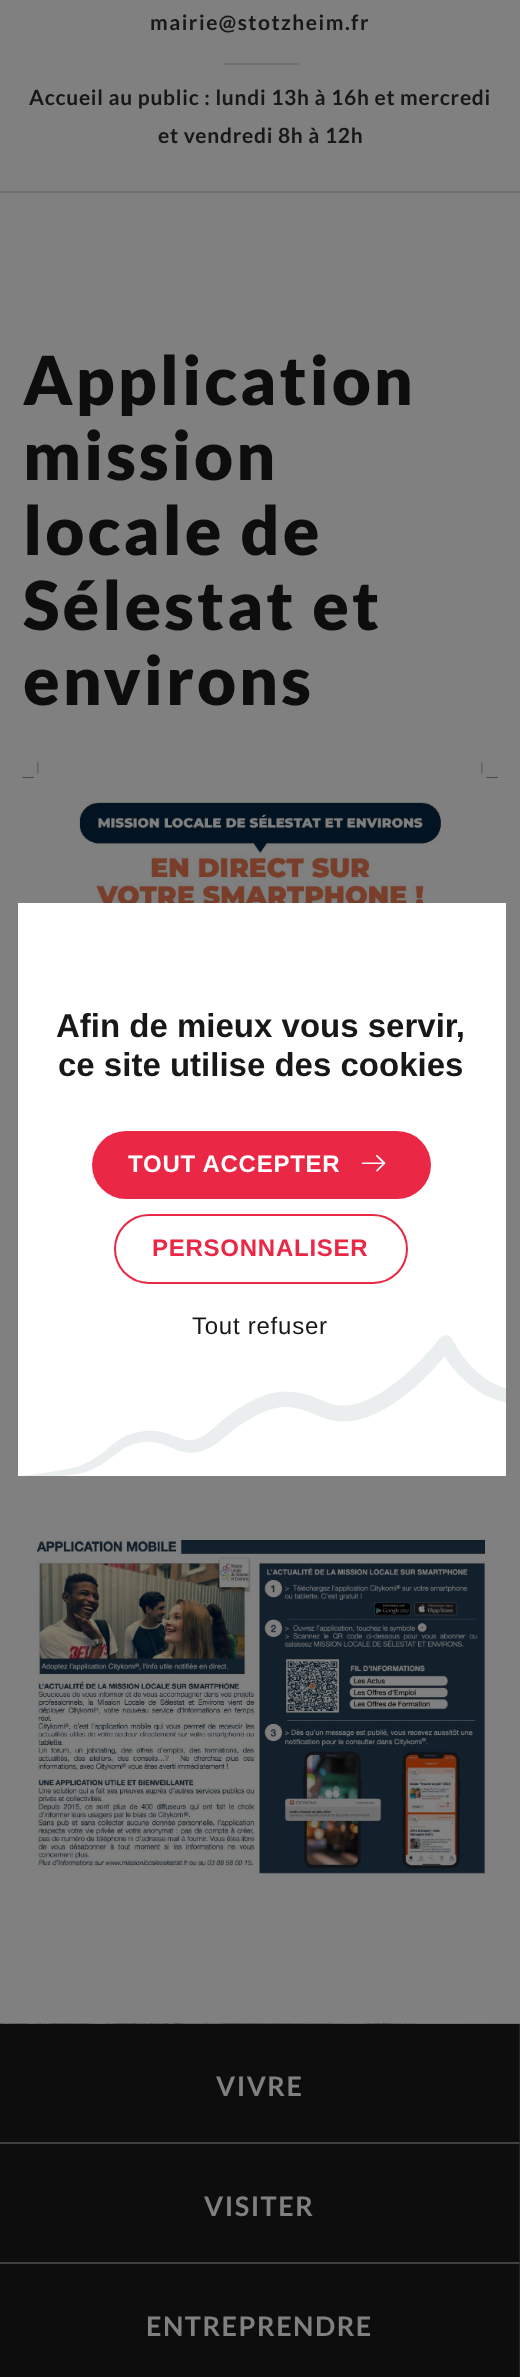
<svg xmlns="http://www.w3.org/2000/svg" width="520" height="2377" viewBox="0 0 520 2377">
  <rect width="100%" height="100%" fill="rgb(128,128,128)"/>
  <rect x="0" y="191" width="520" height="2" fill="rgb(111,111,111)"/>
  <text x="150" y="30" font-family="Lato" font-size="21" font-weight="bold" letter-spacing="1.5" fill="rgb(24,24,24)">mairie@stotzheim.fr</text>
  <rect x="224" y="63" width="75" height="2" fill="rgb(111,111,111)"/>
  <g font-family="Lato" font-size="21" font-weight="bold" letter-spacing="0.75" fill="rgb(24,24,24)">
    <text x="29" y="105">Accueil au public : lundi 13h à 16h et mercredi</text>
    <text x="158" y="143">et vendredi 8h à 12h</text>
  </g>
  <g font-family="Lato" font-size="67.5" font-weight="900" letter-spacing="3" fill="rgb(13,13,13)">
    <text>
      <tspan x="23" y="405">Application</tspan>
      <tspan x="23" y="480">mission</tspan>
      <tspan x="23" y="555">locale de</tspan>
      <tspan x="23" y="630">Sélestat et</tspan>
      <tspan x="23" y="705">environs</tspan>
    </text>
  </g>
  <image x="22" y="762" width="476" height="141" href="pic1.png"/>
  <image x="35" y="1536" width="455" height="338" href="pic2.png"/>
  <image x="0" y="2023" width="520" height="1" href="pic3.png"/>
  <rect x="0" y="2024" width="520" height="240" fill="rgb(13,13,13)"/>
  <path d="M520 2024V2144L519 2142V2024Z" fill="rgb(36,36,36)"/>
  <path d="M520 2144H0V2142H519Z" fill="rgb(64,64,64)"/>
  <text x="216" y="2096" font-family="Lato" font-size="27" font-weight="bold" letter-spacing="1.5" fill="rgb(128,128,128)">VIVRE</text>
  <path d="M520 2144V2264L519 2262V2144Z" fill="rgb(36,36,36)"/>
  <path d="M520 2264H0V2262H519Z" fill="rgb(64,64,64)"/>
  <text x="204" y="2216" font-family="Lato" font-size="27" font-weight="bold" letter-spacing="1.5" fill="rgb(128,128,128)">VISITER</text>
  <rect x="0" y="2264" width="519" height="113" fill="rgb(13,13,13)"/>
  <path d="M520 2264V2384L519 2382V2264Z" fill="rgb(36,36,36)"/>
  <text x="146" y="2336" font-family="Lato" font-size="27" font-weight="bold" letter-spacing="1.5" fill="rgb(128,128,128)">ENTREPRENDRE</text>
  <rect x="18" y="903" width="488" height="573" fill="rgb(255,255,255)"/>
  <image x="23" y="1335" width="483" height="141" href="pic4.png"/>
  <g font-family="Liberation Sans" font-size="33" font-weight="bold" fill="rgb(24,24,24)">
    <text x="56" y="1037">Afin de mieux vous servir,</text>
    <text x="58" y="1076">ce site utilise des cookies</text>
  </g>
  <rect x="92" y="1131" width="339" height="68" rx="34" fill="rgb(234,39,69)"/>
  <image x="361" y="1155" width="25" height="17" href="pic5.png"/>
  <text x="128" y="1172" font-family="Liberation Sans" font-size="24" font-weight="bold" letter-spacing="0.75" fill="rgb(255,255,255)">TOUT ACCEPTER</text>
  <rect x="115" y="1215" width="292" height="68" rx="34" fill="none" stroke="rgb(234,39,69)" stroke-width="2"/>
  <text x="152" y="1256" font-family="Liberation Sans" font-size="24" font-weight="bold" letter-spacing="0.75" fill="rgb(234,39,69)">PERSONNALISER</text>
  <text x="192" y="1334" font-family="Liberation Sans" font-size="24" letter-spacing="0.75" fill="rgb(24,24,24)">Tout refuser</text>
</svg>
